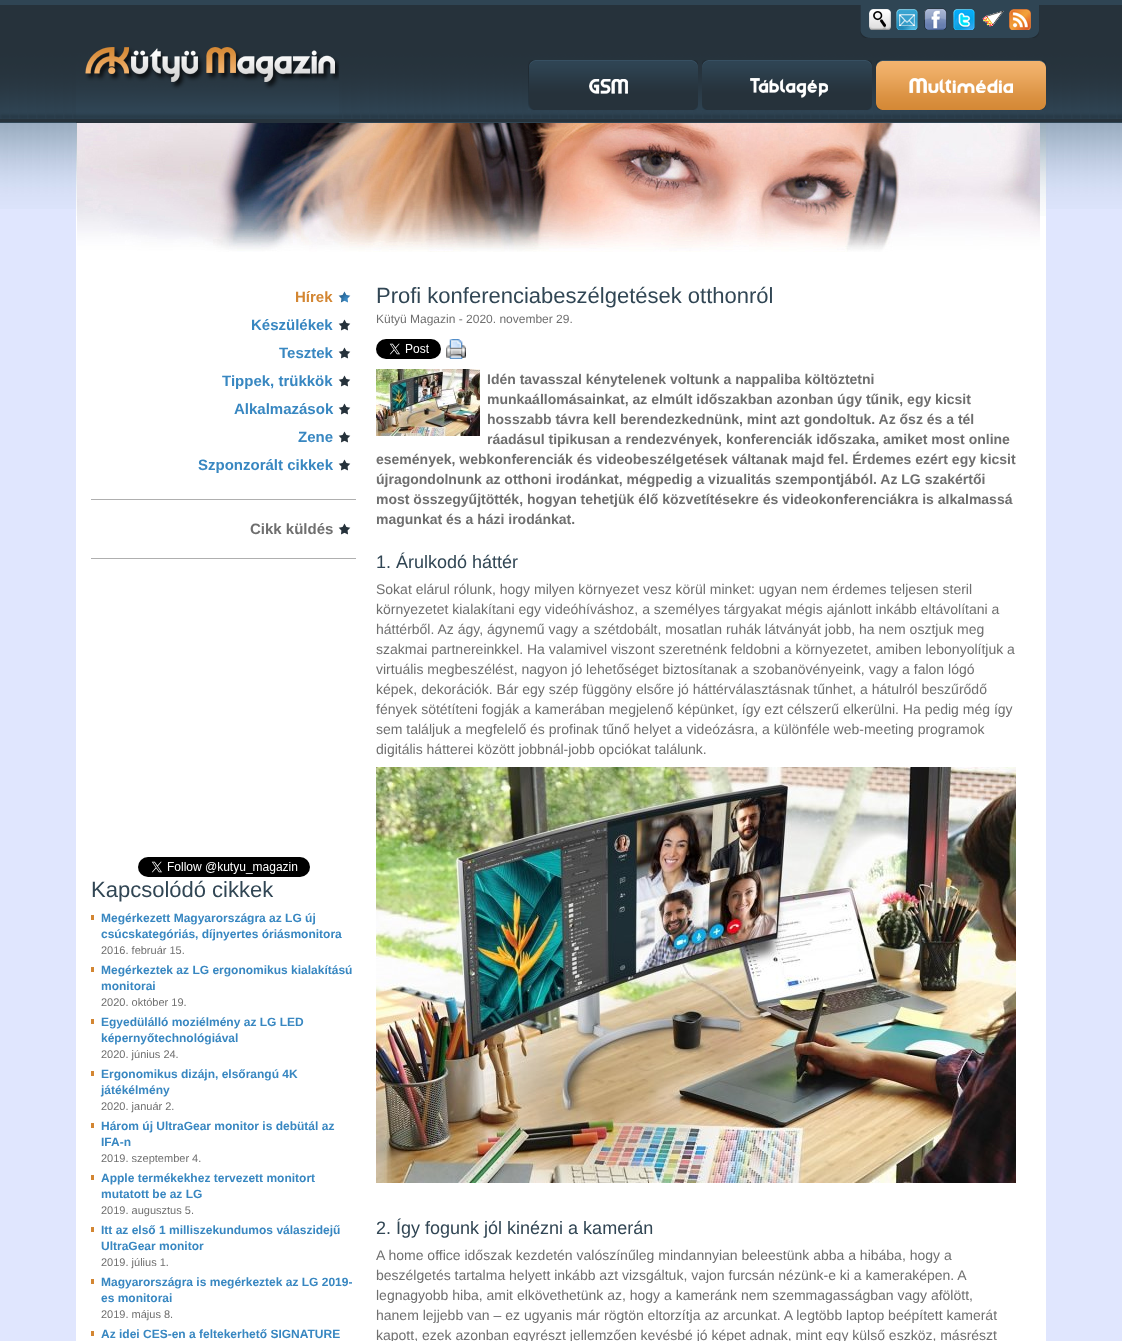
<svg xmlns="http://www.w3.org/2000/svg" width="1122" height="1341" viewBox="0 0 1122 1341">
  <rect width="100%" height="100%" fill="rgb(255,255,255)"/>
  <image x="0" y="0" width="1122" height="123" href="pic1.png"/>
  <image x="860" y="5" width="179" height="33" href="pic2.png"/>
  <image x="869" y="9" width="22" height="21" href="pic3.png"/>
  <image x="896" y="9" width="22" height="21" href="pic4.png"/>
  <image x="924" y="8" width="23" height="22" href="pic5.png"/>
  <image x="953" y="9" width="22" height="21" href="pic6.png"/>
  <image x="982" y="10" width="22" height="17" href="pic7.png"/>
  <image x="1009" y="9" width="22" height="21" href="pic8.png"/>
  <image x="76" y="47" width="263" height="76" href="pic9.png"/>
  <image x="528" y="60" width="170" height="50" href="pic10.png"/>
  <image x="702" y="60" width="170" height="50" href="pic11.png"/>
  <image x="876" y="60" width="170" height="50" href="pic12.png"/>
  <rect x="0" y="209" width="1122" height="1132" fill="rgb(224,230,254)"/>
  <image x="0" y="123" width="1122" height="86" href="pic13.png"/>
  <rect x="76" y="216" width="970" height="1125" fill="rgb(255,255,255)"/>
  <image x="76" y="123" width="970" height="93" href="pic14.png"/>
  <image x="77" y="123" width="963" height="129" href="pic15.png"/>
  <image x="338" y="291" width="13" height="12" href="pic16.png"/>
  <text x="295" y="302" font-family="Liberation Sans" font-size="15" font-weight="bold" fill="rgb(211,134,50)">Hírek</text>
  <image x="338" y="319" width="13" height="12" href="pic17.png"/>
  <text x="251" y="330" font-family="Liberation Sans" font-size="15" font-weight="bold" fill="rgb(56,135,193)">Készülékek</text>
  <image x="338" y="347" width="13" height="12" href="pic17.png"/>
  <text x="279" y="358" font-family="Liberation Sans" font-size="15" font-weight="bold" fill="rgb(56,135,193)">Tesztek</text>
  <image x="338" y="375" width="13" height="12" href="pic17.png"/>
  <text x="222" y="386" font-family="Liberation Sans" font-size="15" font-weight="bold" fill="rgb(56,135,193)">Tippek, trükkök</text>
  <image x="338" y="403" width="13" height="12" href="pic17.png"/>
  <text x="234" y="414" font-family="Liberation Sans" font-size="15" font-weight="bold" fill="rgb(56,135,193)">Alkalmazások</text>
  <image x="338" y="431" width="13" height="12" href="pic17.png"/>
  <text x="298" y="442" font-family="Liberation Sans" font-size="15" font-weight="bold" fill="rgb(56,135,193)">Zene</text>
  <image x="338" y="459" width="13" height="12" href="pic17.png"/>
  <text x="198" y="470" font-family="Liberation Sans" font-size="15" font-weight="bold" fill="rgb(56,135,193)">Szponzorált cikkek</text>
  <rect x="91" y="499" width="265" height="1" fill="rgb(175,175,175)"/>
  <rect x="91" y="558" width="265" height="1" fill="rgb(175,175,175)"/>
  <image x="338" y="523" width="13" height="12" href="pic17.png"/>
  <text x="250" y="534" font-family="Liberation Sans" font-size="15" font-weight="bold" fill="rgb(111,111,111)">Cikk küldés</text>
  <image x="138" y="857" width="172" height="20" href="pic18.png"/>
  <text x="91" y="897" font-family="Liberation Sans" font-size="22" fill="rgb(49,70,84)">Kapcsolódó cikkek</text>
  <rect x="91" y="915" width="3" height="5" fill="rgb(211,134,50)"/>
  <g font-family="Liberation Sans" font-size="12" font-weight="bold" fill="rgb(56,135,193)">
    <text>
      <tspan x="101" y="922">Megérkezett Magyarországra az LG új</tspan>
      <tspan x="101" y="938">csúcskategóriás, díjnyertes óriásmonitora</tspan>
    </text>
  </g>
  <text x="101" y="954" font-family="Liberation Sans" font-size="11" fill="rgb(111,111,111)">2016. február 15.</text>
  <rect x="91" y="967" width="3" height="5" fill="rgb(211,134,50)"/>
  <g font-family="Liberation Sans" font-size="12" font-weight="bold" fill="rgb(56,135,193)">
    <text>
      <tspan x="101" y="974">Megérkeztek az LG ergonomikus kialakítású</tspan>
      <tspan x="101" y="990">monitorai</tspan>
    </text>
  </g>
  <text x="101" y="1006" font-family="Liberation Sans" font-size="11" fill="rgb(111,111,111)">2020. október 19.</text>
  <rect x="91" y="1019" width="3" height="5" fill="rgb(211,134,50)"/>
  <g font-family="Liberation Sans" font-size="12" font-weight="bold" fill="rgb(56,135,193)">
    <text>
      <tspan x="101" y="1026">Egyedülálló moziélmény az LG LED</tspan>
      <tspan x="101" y="1042">képernyőtechnológiával</tspan>
    </text>
  </g>
  <text x="101" y="1058" font-family="Liberation Sans" font-size="11" fill="rgb(111,111,111)">2020. június 24.</text>
  <rect x="91" y="1071" width="3" height="5" fill="rgb(211,134,50)"/>
  <g font-family="Liberation Sans" font-size="12" font-weight="bold" fill="rgb(56,135,193)">
    <text>
      <tspan x="101" y="1078">Ergonomikus dizájn, elsőrangú 4K</tspan>
      <tspan x="101" y="1094">játékélmény</tspan>
    </text>
  </g>
  <text x="101" y="1110" font-family="Liberation Sans" font-size="11" fill="rgb(111,111,111)">2020. január 2.</text>
  <rect x="91" y="1123" width="3" height="5" fill="rgb(211,134,50)"/>
  <g font-family="Liberation Sans" font-size="12" font-weight="bold" fill="rgb(56,135,193)">
    <text>
      <tspan x="101" y="1130">Három új UltraGear monitor is debütál az</tspan>
      <tspan x="101" y="1146">IFA-n</tspan>
    </text>
  </g>
  <text x="101" y="1162" font-family="Liberation Sans" font-size="11" fill="rgb(111,111,111)">2019. szeptember 4.</text>
  <rect x="91" y="1175" width="3" height="5" fill="rgb(211,134,50)"/>
  <g font-family="Liberation Sans" font-size="12" font-weight="bold" fill="rgb(56,135,193)">
    <text>
      <tspan x="101" y="1182">Apple termékekhez tervezett monitort</tspan>
      <tspan x="101" y="1198">mutatott be az LG</tspan>
    </text>
  </g>
  <text x="101" y="1214" font-family="Liberation Sans" font-size="11" fill="rgb(111,111,111)">2019. augusztus 5.</text>
  <rect x="91" y="1227" width="3" height="5" fill="rgb(211,134,50)"/>
  <g font-family="Liberation Sans" font-size="12" font-weight="bold" fill="rgb(56,135,193)">
    <text>
      <tspan x="101" y="1234">Itt az első 1 milliszekundumos válaszidejű</tspan>
      <tspan x="101" y="1250">UltraGear monitor</tspan>
    </text>
  </g>
  <text x="101" y="1266" font-family="Liberation Sans" font-size="11" fill="rgb(111,111,111)">2019. július 1.</text>
  <rect x="91" y="1279" width="3" height="5" fill="rgb(211,134,50)"/>
  <g font-family="Liberation Sans" font-size="12" font-weight="bold" fill="rgb(56,135,193)">
    <text>
      <tspan x="101" y="1286">Magyarországra is megérkeztek az LG 2019-</tspan>
      <tspan x="101" y="1302">es monitorai</tspan>
    </text>
  </g>
  <text x="101" y="1318" font-family="Liberation Sans" font-size="11" fill="rgb(111,111,111)">2019. május 8.</text>
  <rect x="91" y="1331" width="3" height="5" fill="rgb(211,134,50)"/>
  <text x="101" y="1338" font-family="Liberation Sans" font-size="12" font-weight="bold" fill="rgb(56,135,193)">Az idei CES-en a feltekerhető SIGNATURE</text>
  <text x="376" y="303" font-family="Liberation Sans" font-size="22" fill="rgb(49,70,84)">Profi konferenciabeszélgetések otthonról</text>
  <text x="376" y="323" font-family="Liberation Sans" font-size="12" fill="rgb(111,111,111)">Kütyü Magazin - 2020. november 29.</text>
  <image x="376" y="339" width="65" height="20" href="pic19.png"/>
  <image x="446" y="339" width="20" height="20" href="pic20.png"/>
  <image x="376" y="369" width="104" height="67" href="pic21.png"/>
  <g font-family="Liberation Sans" font-size="14" font-weight="bold" fill="rgb(111,111,111)">
    <text>
      <tspan x="487" y="384">Idén tavasszal kénytelenek voltunk a nappaliba költöztetni</tspan>
      <tspan x="487" y="404">munkaállomásainkat, az elmúlt időszakban azonban úgy tűnik, egy kicsit</tspan>
      <tspan x="487" y="424">hosszabb távra kell berendezkednünk, mint azt gondoltuk. Az ősz és a tél</tspan>
      <tspan x="487" y="444">ráadásul tipikusan a rendezvények, konferenciák időszaka, amiket most online</tspan>
    </text>
    <text>
      <tspan x="376" y="464">események, webkonferenciák és videobeszélgetések váltanak majd fel. Érdemes ezért egy kicsit</tspan>
      <tspan x="376" y="484">újragondolnunk az otthoni irodánkat, mégpedig a vizualitás szempontjából. Az LG szakértői</tspan>
      <tspan x="376" y="504">most összegyűjtötték, hogyan tehetjük élő közvetítésekre és videokonferenciákra is alkalmassá</tspan>
      <tspan x="376" y="524">magunkat és a házi irodánkat.</tspan>
    </text>
  </g>
  <text x="376" y="568" font-family="Liberation Sans" font-size="18" fill="rgb(49,70,84)">1. Árulkodó háttér</text>
  <g font-family="Liberation Sans" font-size="14" fill="rgb(111,111,111)">
    <text>
      <tspan x="376" y="594">Sokat elárul rólunk, hogy milyen környezet vesz körül minket: ugyan nem érdemes teljesen steril</tspan>
      <tspan x="376" y="614">környezetet kialakítani egy videóhíváshoz, a személyes tárgyakat mégis ajánlott inkább eltávolítani a</tspan>
      <tspan x="376" y="634">háttérből. Az ágy, ágynemű vagy a szétdobált, mosatlan ruhák látványát jobb, ha nem osztjuk meg</tspan>
      <tspan x="376" y="654">szakmai partnereinkkel. Ha valamivel viszont szeretnénk feldobni a környezetet, amiben lebonyolítjuk a</tspan>
      <tspan x="376" y="674">virtuális megbeszélést, nagyon jó lehetőséget biztosítanak a szobanövényeink, vagy a falon lógó</tspan>
      <tspan x="376" y="694">képek, dekorációk. Bár egy szép függöny elsőre jó háttérválasztásnak tűnhet, a hátulról beszűrődő</tspan>
      <tspan x="376" y="714">fények sötétíteni fogják a kamerában megjelenő képünket, így ezt célszerű elkerülni. Ha pedig még így</tspan>
      <tspan x="376" y="734">sem találjuk a megfelelő és profinak tűnő helyet a videózásra, a különféle web-meeting programok</tspan>
      <tspan x="376" y="754">digitális hátterei között jobbnál-jobb opciókat találunk.</tspan>
    </text>
  </g>
  <image x="376" y="767" width="640" height="416" href="pic22.png"/>
  <text x="376" y="1234" font-family="Liberation Sans" font-size="18" fill="rgb(49,70,84)">2. Így fogunk jól kinézni a kamerán</text>
  <g font-family="Liberation Sans" font-size="14" fill="rgb(111,111,111)">
    <text>
      <tspan x="376" y="1260">A home office időszak kezdetén valószínűleg mindannyian beleestünk abba a hibába, hogy a</tspan>
      <tspan x="376" y="1280">beszélgetés tartalma helyett inkább azt vizsgáltuk, vajon furcsán nézünk-e ki a kameraképen. A</tspan>
      <tspan x="376" y="1300">legnagyobb hiba, amit elkövethetünk az, hogy a kameránk nem szemmagasságban vagy afölött,</tspan>
      <tspan x="376" y="1320">hanem lejjebb van – ez ugyanis már rögtön eltorzítja az arcunkat. A legtöbb laptop beépített kamerát</tspan>
      <tspan x="376" y="1340">kapott, ezek azonban egyrészt jellemzően kevésbé jó képet adnak, mint egy külső eszköz, másrészt</tspan>
    </text>
  </g>
</svg>
